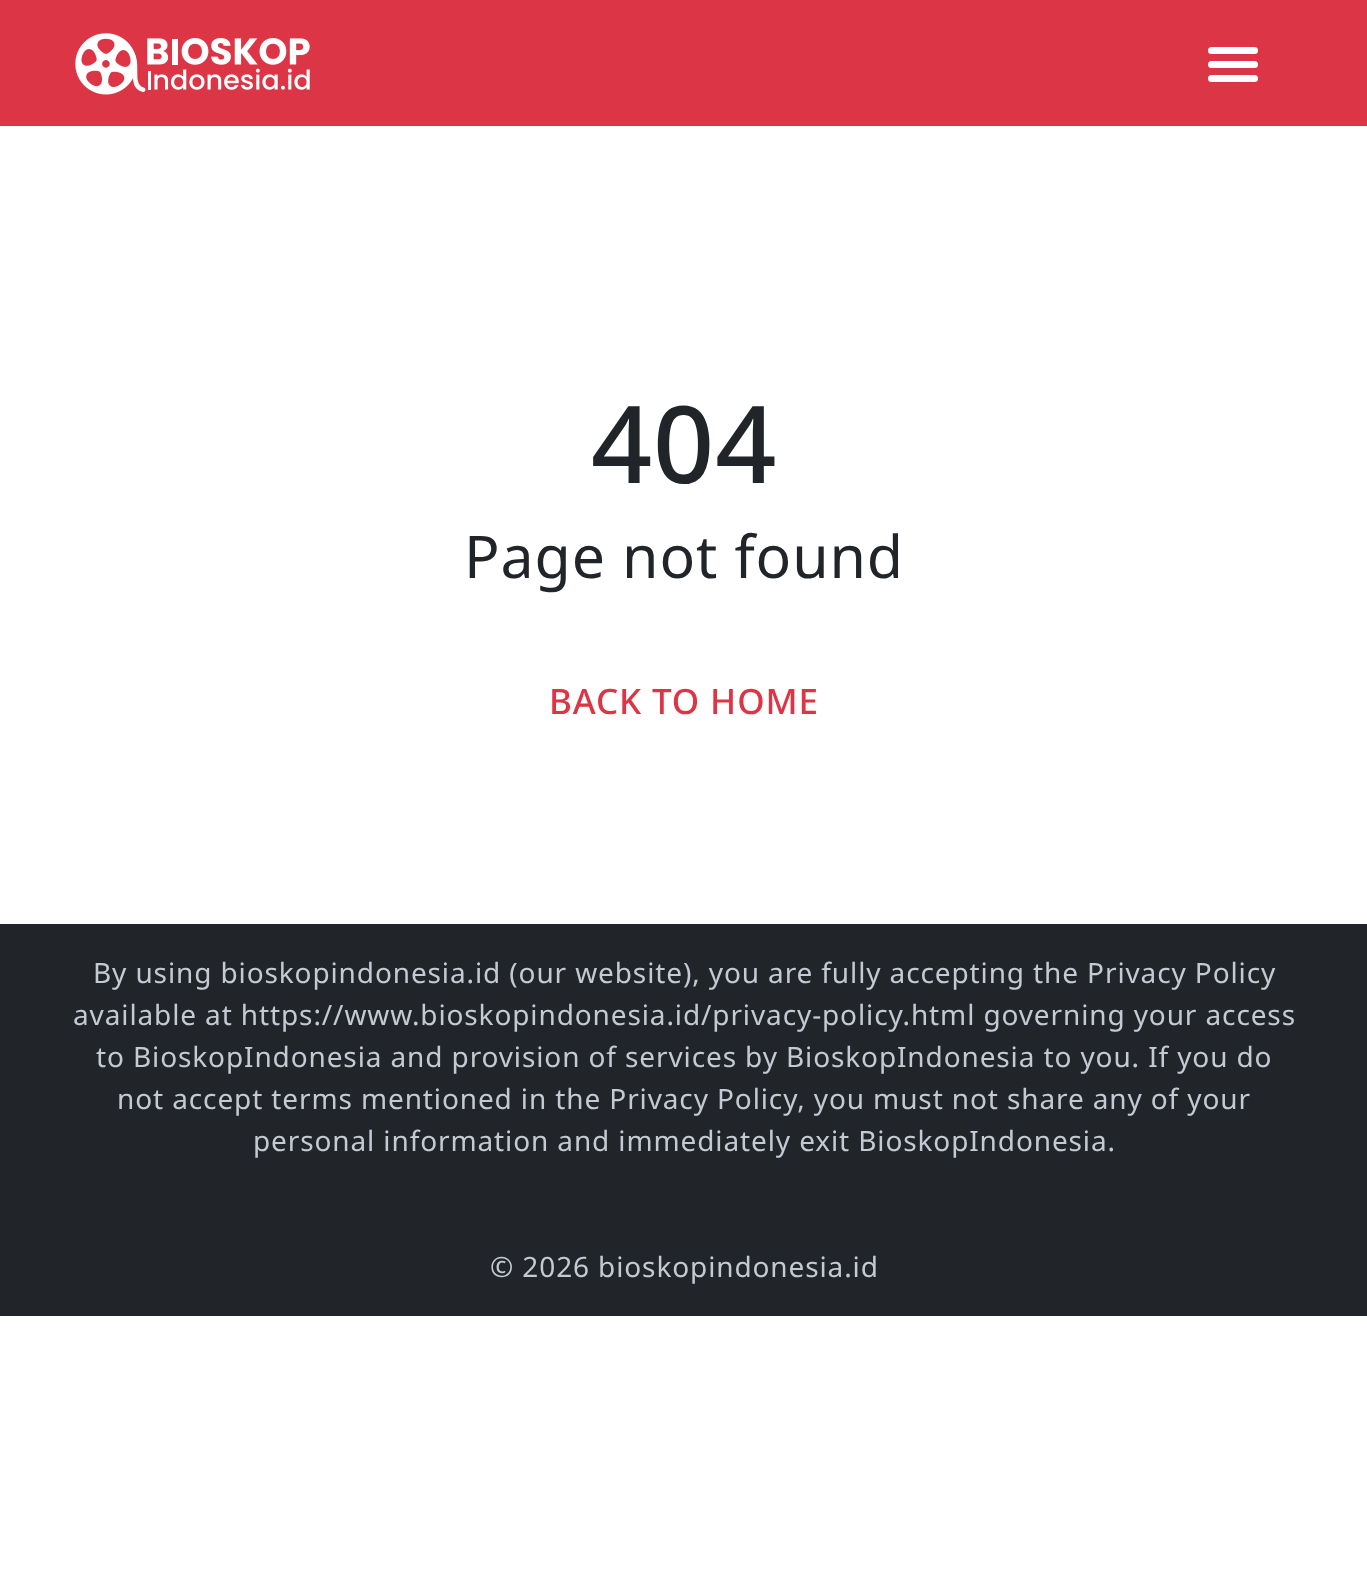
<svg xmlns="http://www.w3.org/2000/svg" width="1367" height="1586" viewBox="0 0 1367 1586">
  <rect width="100%" height="100%" fill="rgb(255,255,255)"/>
  <rect x="0" y="0" width="1367" height="126" fill="rgb(220,53,69)"/>
  <image x="75" y="33" width="235" height="62" href="pic1.png"/>
  <rect x="1208" y="47" width="50" height="7" rx="3.5" fill="rgb(255,255,255)"/>
  <rect x="1208" y="61" width="50" height="7" rx="3.5" fill="rgb(255,255,255)"/>
  <rect x="1208" y="75" width="50" height="7" rx="3.5" fill="rgb(255,255,255)"/>
  <text x="591" y="483" font-family="Noto Sans" font-size="107" font-weight="500" letter-spacing="0.88" fill="rgb(33,37,41)">404</text>
  <text x="464" y="578" font-family="Noto Sans" font-size="59" letter-spacing="0.88" fill="rgb(33,37,41)">Page not found</text>
  <text x="549" y="714" font-family="Noto Sans" font-size="35" font-weight="500" letter-spacing="0.88" fill="rgb(220,53,69)">BACK TO HOME</text>
  <rect x="0" y="924" width="1367" height="392" fill="rgb(33,37,41)"/>
  <g font-family="Noto Sans" font-size="28" letter-spacing="0.88" fill="rgb(196,201,211)">
    <text x="93" y="983">By using bioskopindonesia.id (our website), you are fully accepting the Privacy Policy</text>
    <text x="73" y="1025">available at https://www.bioskopindonesia.id/privacy-policy.html governing your access</text>
    <text x="96" y="1067">to BioskopIndonesia and provision of services by BioskopIndonesia to you. If you do</text>
    <text x="117" y="1109">not accept terms mentioned in the Privacy Policy, you must not share any of your</text>
    <text x="253" y="1151">personal information and immediately exit BioskopIndonesia.</text>
    <text x="490" y="1277">© 2026 bioskopindonesia.id</text>
  </g>
</svg>
